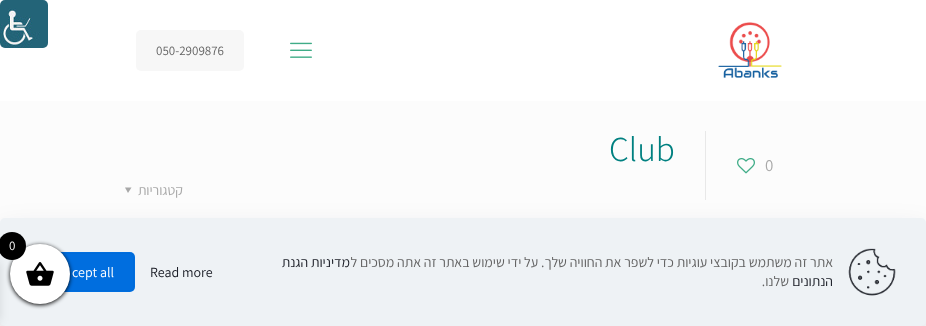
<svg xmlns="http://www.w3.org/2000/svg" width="926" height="326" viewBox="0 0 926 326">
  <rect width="100%" height="100%" fill="rgb(252,252,252)"/>
  <rect x="0" y="0" width="926" height="101" fill="rgb(255,255,255)"/>
  <rect x="0.5" y="0.5" width="47" height="47" rx="4.5" fill="none" stroke="rgb(247,247,247)"/>
  <image x="0" y="0" width="48" height="48" href="pic1.png"/>
  <image x="718" y="22" width="64" height="56" href="pic2.png"/>
  <image x="290" y="42" width="22" height="16" href="pic3.png"/>
  <rect x="136" y="30" width="108" height="41" rx="5" fill="rgb(247,247,247)"/>
  <text x="156" y="55" font-family="Assistant" font-size="13" fill="rgb(98,98,98)">050-2909876</text>
  <text x="765" y="171" font-family="Assistant" font-size="17" fill="rgb(168,168,168)">0</text>
  <image x="737" y="158" width="18" height="16" href="pic4.png"/>
  <rect x="705" y="131" width="1" height="69" fill="rgb(232,232,232)"/>
  <text x="609" y="161" font-family="Assistant" font-size="35" font-weight="300" fill="rgb(0,128,128)">Club</text>
  <text x="183" y="195" font-family="Assistant" font-size="14" direction="rtl" fill="rgb(168,168,168)">קטגוריות</text>
  <path d="M131.5 187.5L128 193L125 187.5Z" fill="rgb(168,168,168)"/>
  <rect x="0" y="233" width="926" height="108" rx="5" fill="rgba(1,7,39,0.13)" filter="blur(15px)"/>
  <rect x="0" y="218" width="926" height="108" rx="5" fill="rgb(238,242,245)"/>
  <rect x="37" y="252" width="98" height="40" rx="5" fill="rgb(0,110,223)"/>
  <rect x="38.5" y="253.5" width="95" height="37" rx="3.5" fill="none" stroke="rgb(0,107,216)"/>
  <rect x="10" y="245" width="60" height="60" rx="30" fill="rgb(0,0,0)" filter="blur(2px)"/>
  <rect x="-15" y="262" width="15" height="59" fill="rgba(0,0,0,0.1)" filter="blur(5px)"/>
  <circle cx="40" cy="274" r="30" fill="rgb(255,255,255)"/>
  <circle cx="12" cy="246" r="14" fill="rgb(0,0,0)"/>
  <text x="9" y="250" font-family="Assistant" font-size="13" fill="rgb(255,255,255)">0</text>
  <image x="26" y="262" width="28" height="24" href="pic5.png"/>
  <image x="848" y="248" width="48" height="48" href="pic6.png"/>
  <text x="833" y="267" font-family="Assistant" font-size="14" direction="rtl" fill="rgb(98,98,98)">אתר זה משתמש בקובצי עוגיות כדי לשפר את החוויה שלך. על ידי שימוש באתר זה אתה מסכים ל</text>
  <g font-family="Assistant" font-size="14" direction="rtl" fill="rgb(22,25,34)">
    <text x="350" y="267">מדיניות הגנת</text>
    <text x="833" y="286">הנתונים</text>
  </g>
  <text x="789" y="286" font-family="Assistant" font-size="14" direction="rtl" fill="rgb(98,98,98)">שלנו.</text>
  <text x="150" y="277" font-family="Assistant" font-size="14" fill="rgb(22,25,34)">Read more</text>
  <text x="72" y="277" font-family="Assistant" font-size="14" fill="rgb(255,255,255)">cept all</text>
</svg>
